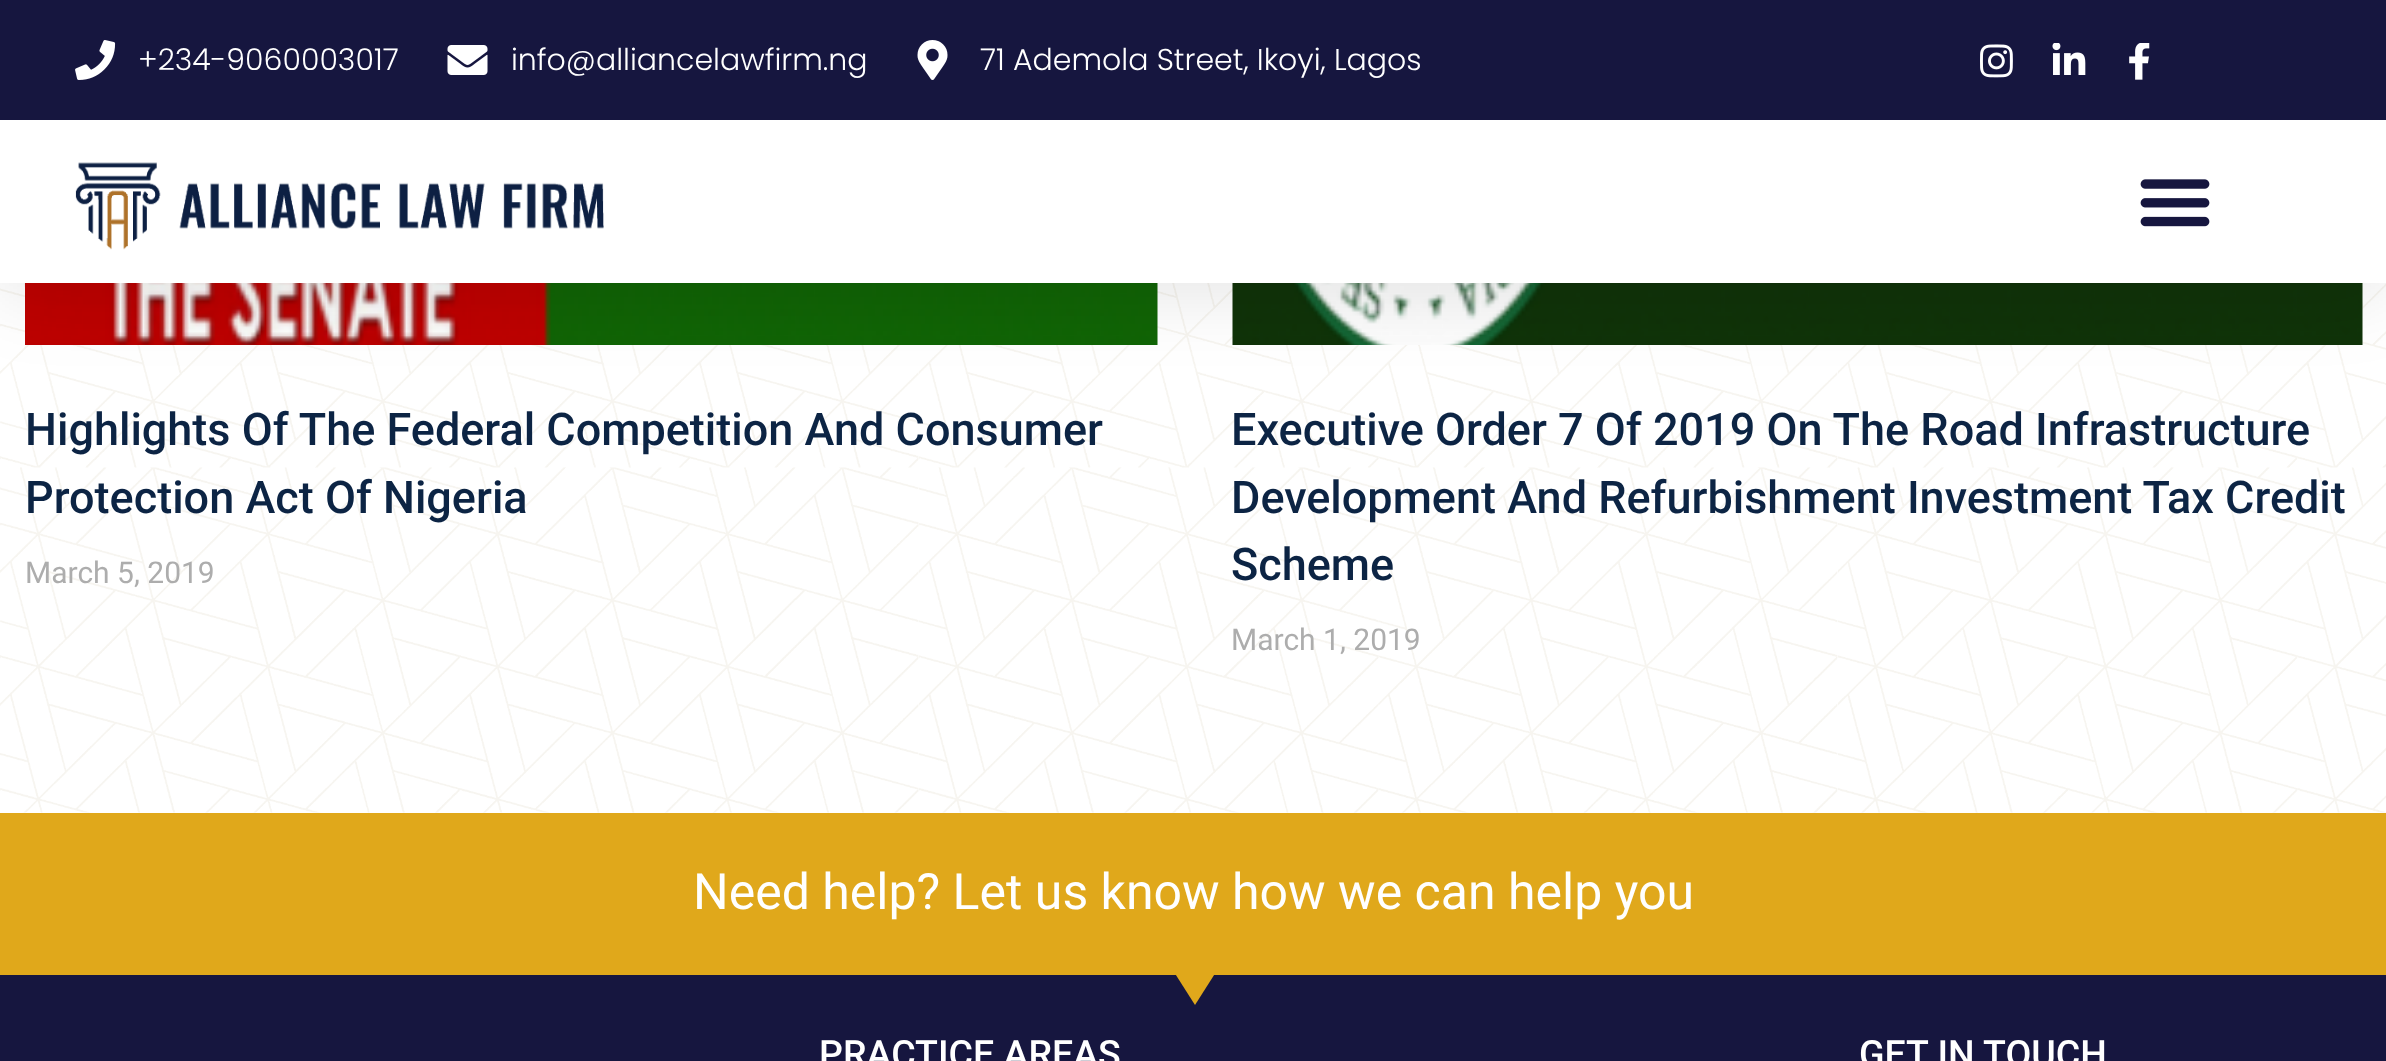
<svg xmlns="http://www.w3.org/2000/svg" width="2386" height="1061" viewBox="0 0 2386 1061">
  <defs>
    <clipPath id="clip1"><rect x="478" y="973" width="1435" height="32"/></clipPath>
  </defs>
  <rect width="100%" height="100%" fill="rgb(255,255,255)"/>
  <image x="0" y="283" width="2386" height="530" href="pic9.png"/>
  <image x="25" y="283" width="1133" height="62" href="pic10.png"/>
  <image x="1232" y="283" width="1131" height="62" href="pic11.png"/>
  <rect x="0" y="13" width="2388" height="282" fill="rgba(0,0,0,0.1)" filter="blur(37.5px)"/>
  <rect x="0" y="0" width="2386" height="120" fill="rgb(22,22,63)"/>
  <image x="75" y="40" width="41" height="40" href="pic1.png"/>
  <text x="138" y="70" font-family="Poppins" font-size="30" font-weight="300" fill="rgb(255,255,255)">+234-9060003017</text>
  <image x="447" y="45" width="41" height="30" href="pic2.png"/>
  <text x="511" y="70" font-family="Poppins" font-size="30" font-weight="300" fill="rgb(255,255,255)">info@alliancelawfirm.ng</text>
  <image x="917" y="40" width="31" height="40" href="pic3.png"/>
  <text x="980" y="70" font-family="Poppins" font-size="30" font-weight="300" fill="rgb(255,255,255)">71 Ademola Street, Ikoyi, Lagos</text>
  <image x="1980" y="44" width="33" height="34" href="pic4.png"/>
  <image x="2052" y="43" width="34" height="32" href="pic5.png"/>
  <image x="2129" y="43" width="21" height="37" href="pic6.png"/>
  <rect x="0" y="120" width="2386" height="163" fill="rgb(255,255,255)"/>
  <image x="75" y="162" width="529" height="88" href="pic7.png"/>
  <image x="2140" y="179" width="70" height="48" href="pic8.png"/>
  <g font-family="Roboto" font-size="45" font-weight="500" fill="rgb(12,36,68)">
    <text>
      <tspan x="25" y="445">Highlights Of The Federal Competition And Consumer</tspan>
      <tspan x="25" y="513">Protection Act Of Nigeria</tspan>
    </text>
  </g>
  <text x="25" y="583" font-family="Roboto" font-size="30" fill="rgb(173,173,173)">March 5, 2019</text>
  <g font-family="Roboto" font-size="45" font-weight="500" fill="rgb(12,36,68)">
    <text>
      <tspan x="1231" y="445">Executive Order 7 Of 2019 On The Road Infrastructure</tspan>
      <tspan x="1231" y="513">Development And Refurbishment Investment Tax Credit</tspan>
      <tspan x="1231" y="580">Scheme</tspan>
    </text>
  </g>
  <text x="1231" y="650" font-family="Roboto" font-size="30" fill="rgb(173,173,173)">March 1, 2019</text>
  <rect x="0" y="813" width="2386" height="162" fill="rgb(224,168,27)"/>
  <text x="693" y="909" font-family="Roboto" font-size="50" fill="rgb(255,255,255)">Need help? Let us know how we can help you</text>
  <rect x="0" y="975" width="2386" height="86" fill="rgb(22,22,63)"/>
  <g clip-path="url(#clip1)">
    <path d="M1195 1005L1174 972H1216Z" fill="rgb(224,168,27)"/>
  </g>
  <g font-family="Roboto" font-size="37.5" font-weight="500" fill="rgb(255,255,255)">
    <text x="819" y="1067">PRACTICE AREAS</text>
    <text x="1859" y="1067">GET IN TOUCH</text>
  </g>
</svg>
